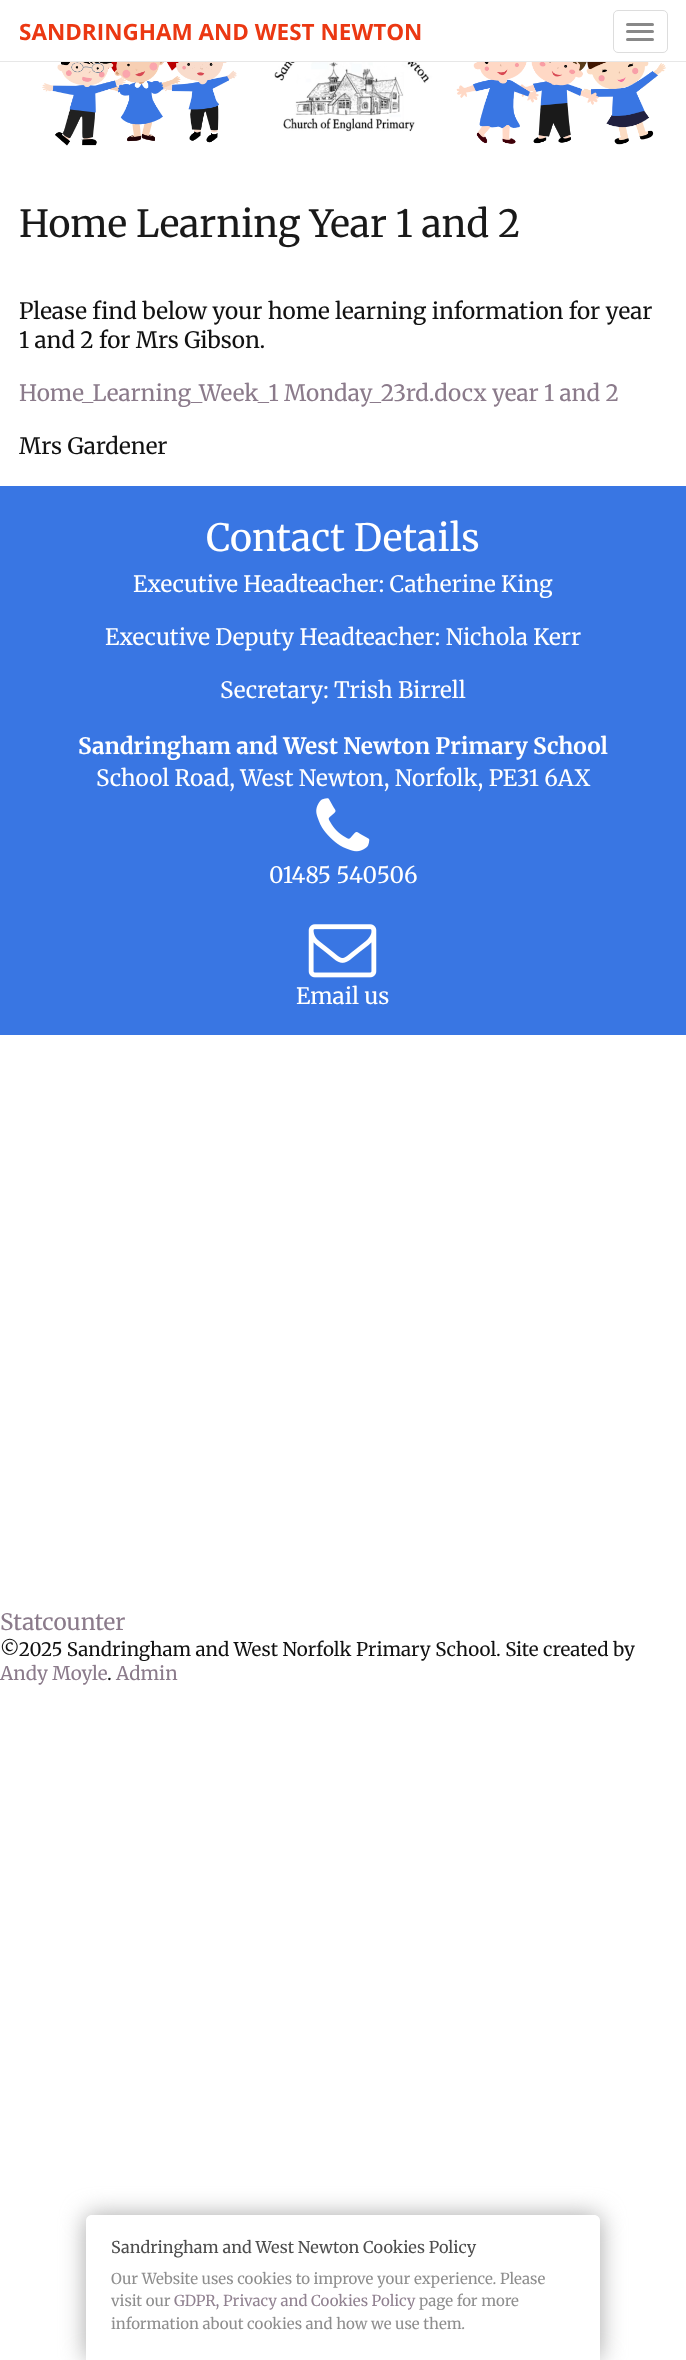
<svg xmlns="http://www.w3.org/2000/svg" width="686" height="2360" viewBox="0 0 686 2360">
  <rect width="100%" height="100%" fill="rgb(255,255,255)"/>
  <rect x="0" y="61" width="686" height="1" fill="rgb(231,231,231)"/>
  <text x="19" y="40" font-family="Open Sans" font-size="22.5" font-weight="bold" fill="rgb(235,56,18)">SANDRINGHAM AND WEST NEWTON</text>
  <rect x="613.5" y="10.5" width="54" height="42" rx="4.5" fill="none" stroke="rgb(221,221,221)"/>
  <rect x="626" y="23" width="28" height="3" rx="1.5" fill="rgb(136,136,136)"/>
  <rect x="626" y="30" width="28" height="3" rx="1.5" fill="rgb(136,136,136)"/>
  <rect x="626" y="38" width="28" height="3" rx="1.5" fill="rgb(136,136,136)"/>
  <image x="42" y="62" width="624" height="84" href="pic1.png"/>
  <text x="19" y="237" font-family="Merriweather" font-size="37.5" fill="rgb(25,25,25)">Home Learning Year 1 and 2</text>
  <g font-family="Merriweather" font-size="22.5" fill="rgb(17,17,17)">
    <text>
      <tspan x="19" y="319">Please find below your home learning information for year</tspan>
      <tspan x="19" y="348">1 and 2 for Mrs Gibson.</tspan>
    </text>
  </g>
  <text x="19" y="401" font-family="Merriweather" font-size="22.5" fill="rgb(139,123,139)">Home_Learning_Week_1 Monday_23rd.docx year 1 and 2</text>
  <text x="19" y="454" font-family="Merriweather" font-size="22.5" fill="rgb(17,17,17)">Mrs Gardener</text>
  <rect x="0" y="486" width="686" height="549" fill="rgb(57,118,227)"/>
  <text x="206" y="551" font-family="Merriweather" font-size="37.5" fill="rgb(255,255,255)">Contact Details</text>
  <g font-family="Merriweather" font-size="22.5" fill="rgb(255,255,255)">
    <text x="133" y="592">Executive Headteacher: Catherine King</text>
    <text x="105" y="645">Executive Deputy Headteacher: Nichola Kerr</text>
    <text x="220" y="698">Secretary: Trish Birrell</text>
  </g>
  <text x="78" y="754" font-family="Merriweather" font-size="22.5" font-weight="bold" fill="rgb(255,255,255)">Sandringham and West Newton Primary School</text>
  <text x="96" y="786" font-family="Merriweather" font-size="22.5" fill="rgb(255,255,255)">School Road, West Newton, Norfolk, PE31 6AX</text>
  <image x="316" y="798" width="54" height="54" href="pic2.png"/>
  <text x="269" y="883" font-family="Merriweather" font-size="22.5" fill="rgb(255,255,255)">01485 540506</text>
  <image x="308" y="924" width="69" height="54" href="pic3.png"/>
  <text x="296" y="1004" font-family="Merriweather" font-size="22.5" fill="rgb(255,255,255)">Email us</text>
  <text x="0" y="1630" font-family="Merriweather" font-size="22.5" fill="rgb(139,123,139)">Statcounter</text>
  <text x="0" y="1656" font-family="Merriweather" font-size="18.75" fill="rgb(17,17,17)">©2025 Sandringham and West Norfolk Primary School. Site created by</text>
  <text x="0" y="1680" font-family="Merriweather" font-size="18.75" fill="rgb(139,123,139)">Andy Moyle</text>
  <text x="107" y="1680" font-family="Merriweather" font-size="18.75" fill="rgb(17,17,17)">.</text>
  <text x="116" y="1680" font-family="Merriweather" font-size="18.75" fill="rgb(139,123,139)">Admin</text>
  <rect x="86" y="2215" width="514" height="145" rx="6" fill="rgb(166,166,166)" filter="blur(12.5px)"/>
  <path d="M92 2215H594C597.5 2215 600 2217.5 600 2221V2360H86V2221C86 2217.5 88.5 2215 92 2215Z" fill="rgb(255,255,255)"/>
  <text x="111" y="2253" font-family="Merriweather" font-size="16.25" fill="rgb(77,77,77)">Sandringham and West Newton Cookies Policy</text>
  <g font-family="Merriweather" font-size="15" fill="rgb(142,142,142)">
    <text>
      <tspan x="111" y="2284">Our Website uses cookies to improve your experience. Please</tspan>
      <tspan x="111" y="2306">visit our</tspan>
    </text>
  </g>
  <text x="174" y="2306" font-family="Merriweather" font-size="15" fill="rgb(145,130,145)">GDPR, Privacy and Cookies Policy</text>
  <g font-family="Merriweather" font-size="15" fill="rgb(142,142,142)">
    <text x="419" y="2306">page for more</text>
    <text x="111" y="2329">information about cookies and how we use them.</text>
  </g>
</svg>
